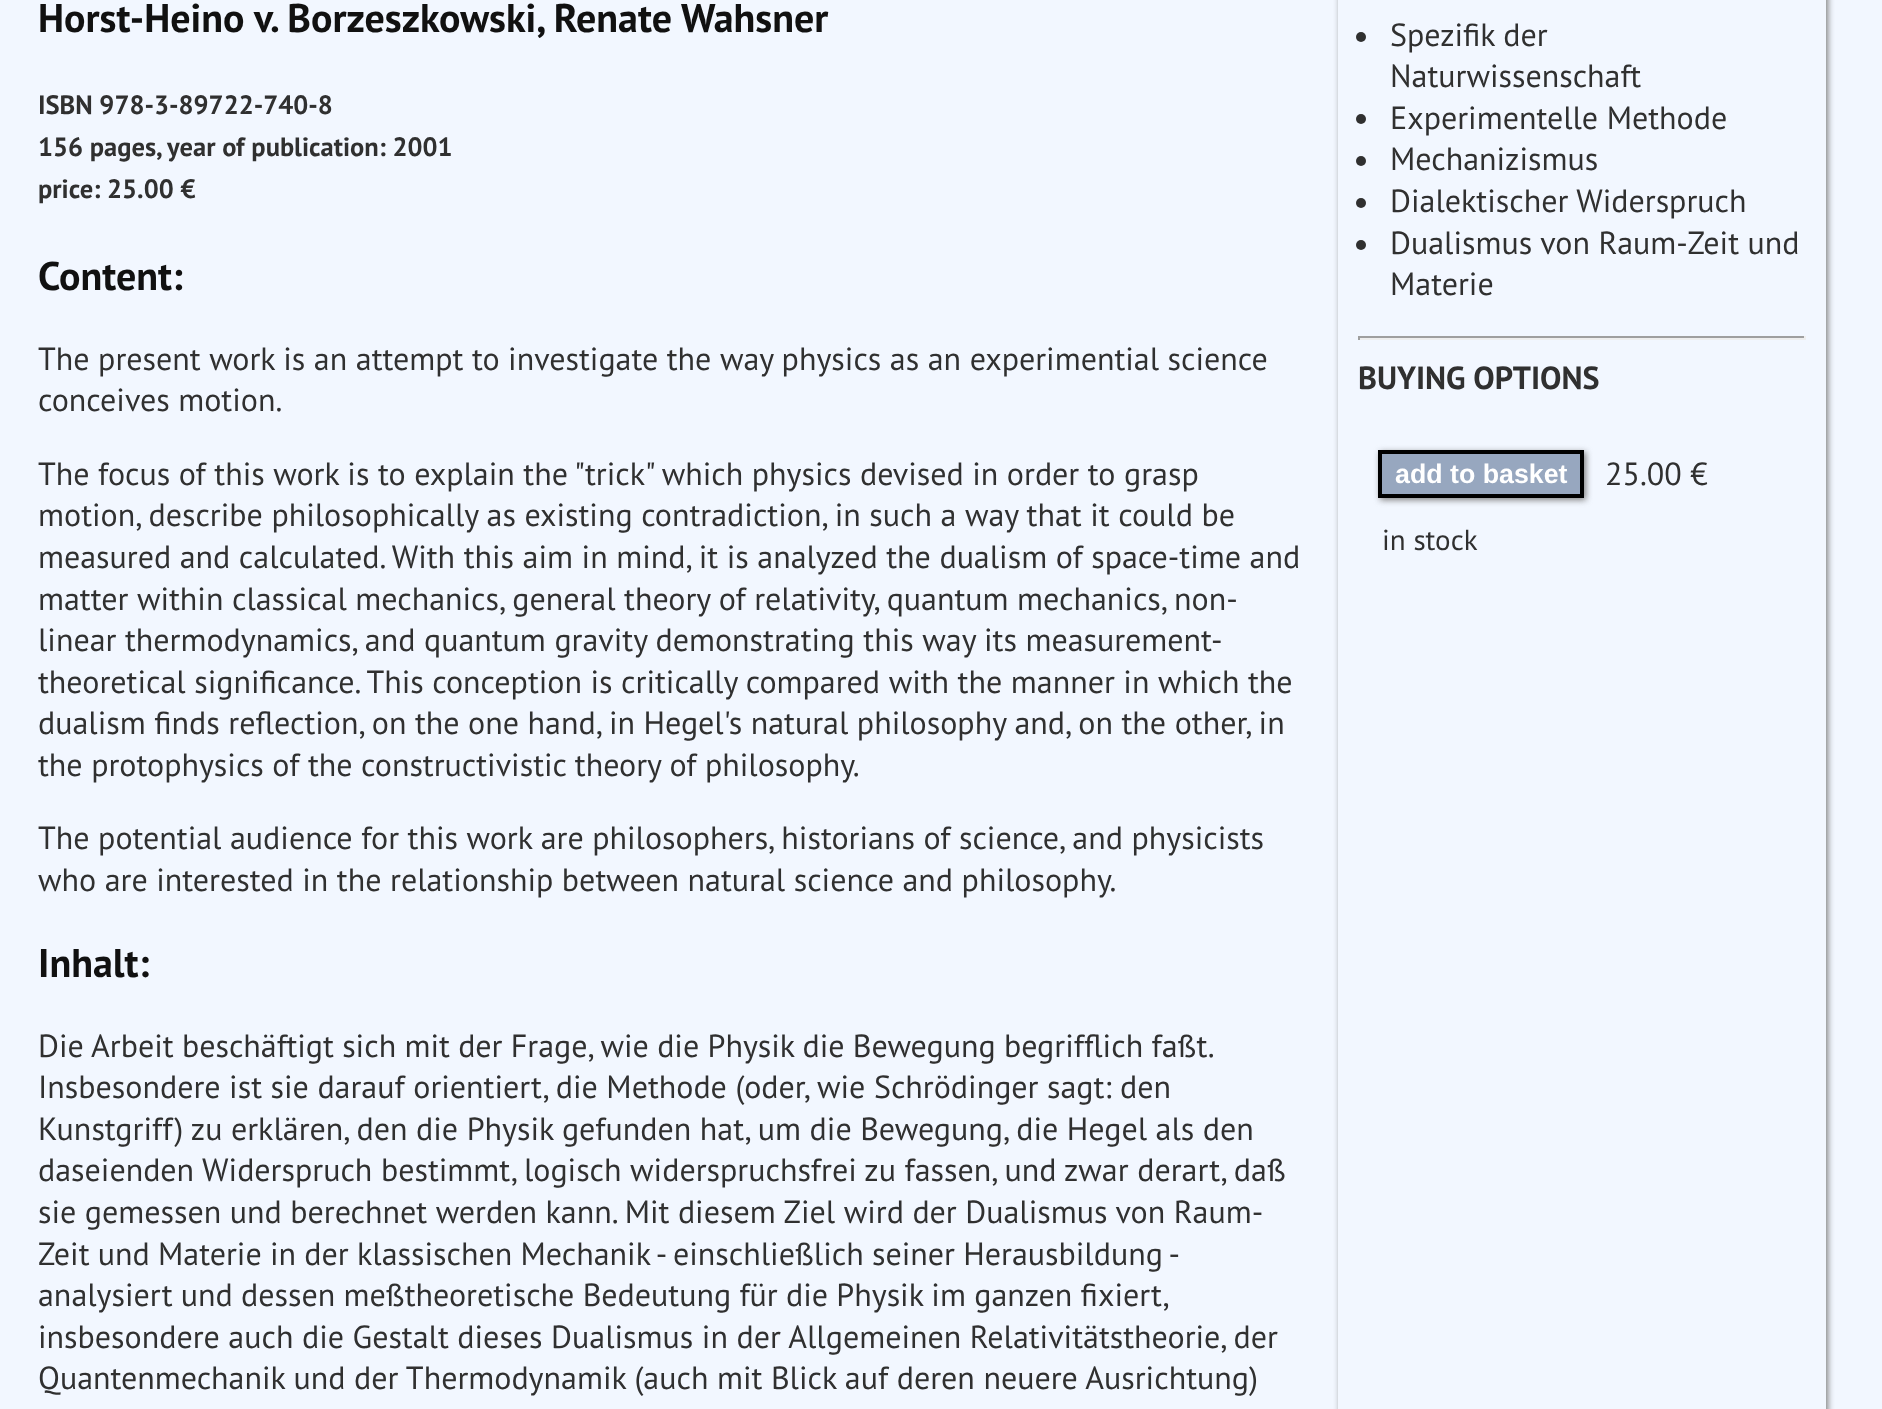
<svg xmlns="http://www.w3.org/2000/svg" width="1882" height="1409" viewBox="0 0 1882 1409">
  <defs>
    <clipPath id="clip1"><path d="M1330 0H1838V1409H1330ZM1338-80H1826V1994H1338Z" clip-rule="evenodd"/></clipPath>
  </defs>
  <rect width="100%" height="100%" fill="rgb(242,247,255)"/>
  <text x="38" y="32" font-family="PT Sans" font-size="40" font-weight="bold" fill="rgb(17,17,17)">Horst-Heino v. Borzeszkowski, Renate Wahsner</text>
  <g font-family="PT Sans" font-size="26.5" font-weight="bold" fill="rgb(48,48,48)">
    <text>
      <tspan x="38" y="114">ISBN 978-3-89722-740-8</tspan>
      <tspan x="38" y="156">156 pages, year of publication: 2001</tspan>
      <tspan x="38" y="198">price: 25.00 €</tspan>
    </text>
  </g>
  <text x="38" y="290" font-family="PT Sans" font-size="40" font-weight="bold" fill="rgb(17,17,17)">Content:</text>
  <g font-family="PT Sans" font-size="32" fill="rgb(48,48,48)">
    <text>
      <tspan x="38" y="370">The present work is an attempt to investigate the way physics as an experimential science</tspan>
      <tspan x="38" y="411">conceives motion.</tspan>
    </text>
    <text>
      <tspan x="38" y="485">The focus of this work is to explain the "trick" which physics devised in order to grasp</tspan>
      <tspan x="38" y="526">motion, describe philosophically as existing contradiction, in such a way that it could be</tspan>
      <tspan x="38" y="568">measured and calculated. With this aim in mind, it is analyzed the dualism of space-time and</tspan>
      <tspan x="38" y="610">matter within classical mechanics, general theory of relativity, quantum mechanics, non-</tspan>
      <tspan x="38" y="651">linear thermodynamics, and quantum gravity demonstrating this way its measurement-</tspan>
      <tspan x="38" y="693">theoretical significance. This conception is critically compared with the manner in which the</tspan>
      <tspan x="38" y="734">dualism finds reflection, on the one hand, in Hegel's natural philosophy and, on the other, in</tspan>
      <tspan x="38" y="776">the protophysics of the constructivistic theory of philosophy.</tspan>
    </text>
    <text>
      <tspan x="38" y="849">The potential audience for this work are philosophers, historians of science, and physicists</tspan>
      <tspan x="38" y="891">who are interested in the relationship between natural science and philosophy.</tspan>
    </text>
  </g>
  <text x="38" y="977" font-family="PT Sans" font-size="40" font-weight="bold" fill="rgb(17,17,17)">Inhalt:</text>
  <g font-family="PT Sans" font-size="32" fill="rgb(48,48,48)">
    <text>
      <tspan x="38" y="1057" word-spacing="-0.25">Die Arbeit beschäftigt sich mit der Frage, wie die Physik die Bewegung begrifflich faßt.</tspan>
      <tspan x="38" y="1098">Insbesondere ist sie darauf orientiert, die Methode (oder, wie Schrödinger sagt: den</tspan>
      <tspan x="38" y="1140">Kunstgriff) zu erklären, den die Physik gefunden hat, um die Bewegung, die Hegel als den</tspan>
      <tspan x="38" y="1181">daseienden Widerspruch bestimmt, logisch widerspruchsfrei zu fassen, und zwar derart, daß</tspan>
      <tspan x="38" y="1223">sie gemessen und berechnet werden kann. Mit diesem Ziel wird der Dualismus von Raum-</tspan>
      <tspan x="38" y="1265" word-spacing="-0.25">Zeit und Materie in der klassischen Mechanik - einschließlich seiner Herausbildung -</tspan>
      <tspan x="38" y="1306" word-spacing="-0.25">analysiert und dessen meßtheoretische Bedeutung für die Physik im ganzen fixiert,</tspan>
      <tspan x="38" y="1348">insbesondere auch die Gestalt dieses Dualismus in der Allgemeinen Relativitätstheorie, der</tspan>
      <tspan x="38" y="1389">Quantenmechanik und der Thermodynamik (auch mit Blick auf deren neuere Ausrichtung)</tspan>
    </text>
  </g>
  <g clip-path="url(#clip1)">
    <rect x="1340" y="-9" width="488" height="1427" fill="rgb(128,128,128)" filter="blur(3px)"/>
  </g>
  <circle cx="1361" cy="37" r="5" fill="rgb(48,48,48)"/>
  <g font-family="PT Sans" font-size="32" fill="rgb(48,48,48)">
    <text>
      <tspan x="1390" y="46">Spezifik der</tspan>
      <tspan x="1390" y="87">Naturwissenschaft</tspan>
    </text>
  </g>
  <circle cx="1361" cy="119" r="5" fill="rgb(48,48,48)"/>
  <text x="1390" y="129" font-family="PT Sans" font-size="32" fill="rgb(48,48,48)">Experimentelle Methode</text>
  <circle cx="1361" cy="161" r="5" fill="rgb(48,48,48)"/>
  <text x="1390" y="170" font-family="PT Sans" font-size="32" fill="rgb(48,48,48)">Mechanizismus</text>
  <circle cx="1361" cy="203" r="5" fill="rgb(48,48,48)"/>
  <text x="1390" y="212" font-family="PT Sans" font-size="32" fill="rgb(48,48,48)">Dialektischer Widerspruch</text>
  <circle cx="1361" cy="245" r="5" fill="rgb(48,48,48)"/>
  <g font-family="PT Sans" font-size="32" fill="rgb(48,48,48)">
    <text>
      <tspan x="1390" y="254">Dualismus von Raum-Zeit und</tspan>
      <tspan x="1390" y="295">Materie</tspan>
    </text>
  </g>
  <rect x="1358" y="336" width="448" height="2" fill="rgb(159,159,159)"/>
  <rect x="1804" y="336" width="2" height="4" fill="rgb(238,238,238)"/>
  <rect x="1358" y="338" width="448" height="2" fill="rgb(238,238,238)"/>
  <rect x="1358" y="336" width="2" height="4" fill="rgb(159,159,159)"/>
  <text x="1358" y="389" font-family="PT Sans" font-size="32" font-weight="bold" fill="rgb(48,48,48)">BUYING OPTIONS</text>
  <rect x="1380" y="452" width="206" height="48" fill="rgb(128,128,128)" filter="blur(3px)"/>
  <rect x="1380" y="452" width="202" height="44" fill="rgb(151,167,191)" stroke="rgb(0,0,0)" stroke-width="4"/>
  <text x="1395" y="483" font-family="Liberation Sans" font-size="26.75" font-weight="bold" fill="rgb(255,255,255)">add to basket</text>
  <text x="1605" y="485" font-family="PT Sans" font-size="32" fill="rgb(48,48,48)">25.00 €</text>
  <text x="1382" y="550" font-family="PT Sans" font-size="29" fill="rgb(48,48,48)">in stock</text>
</svg>
